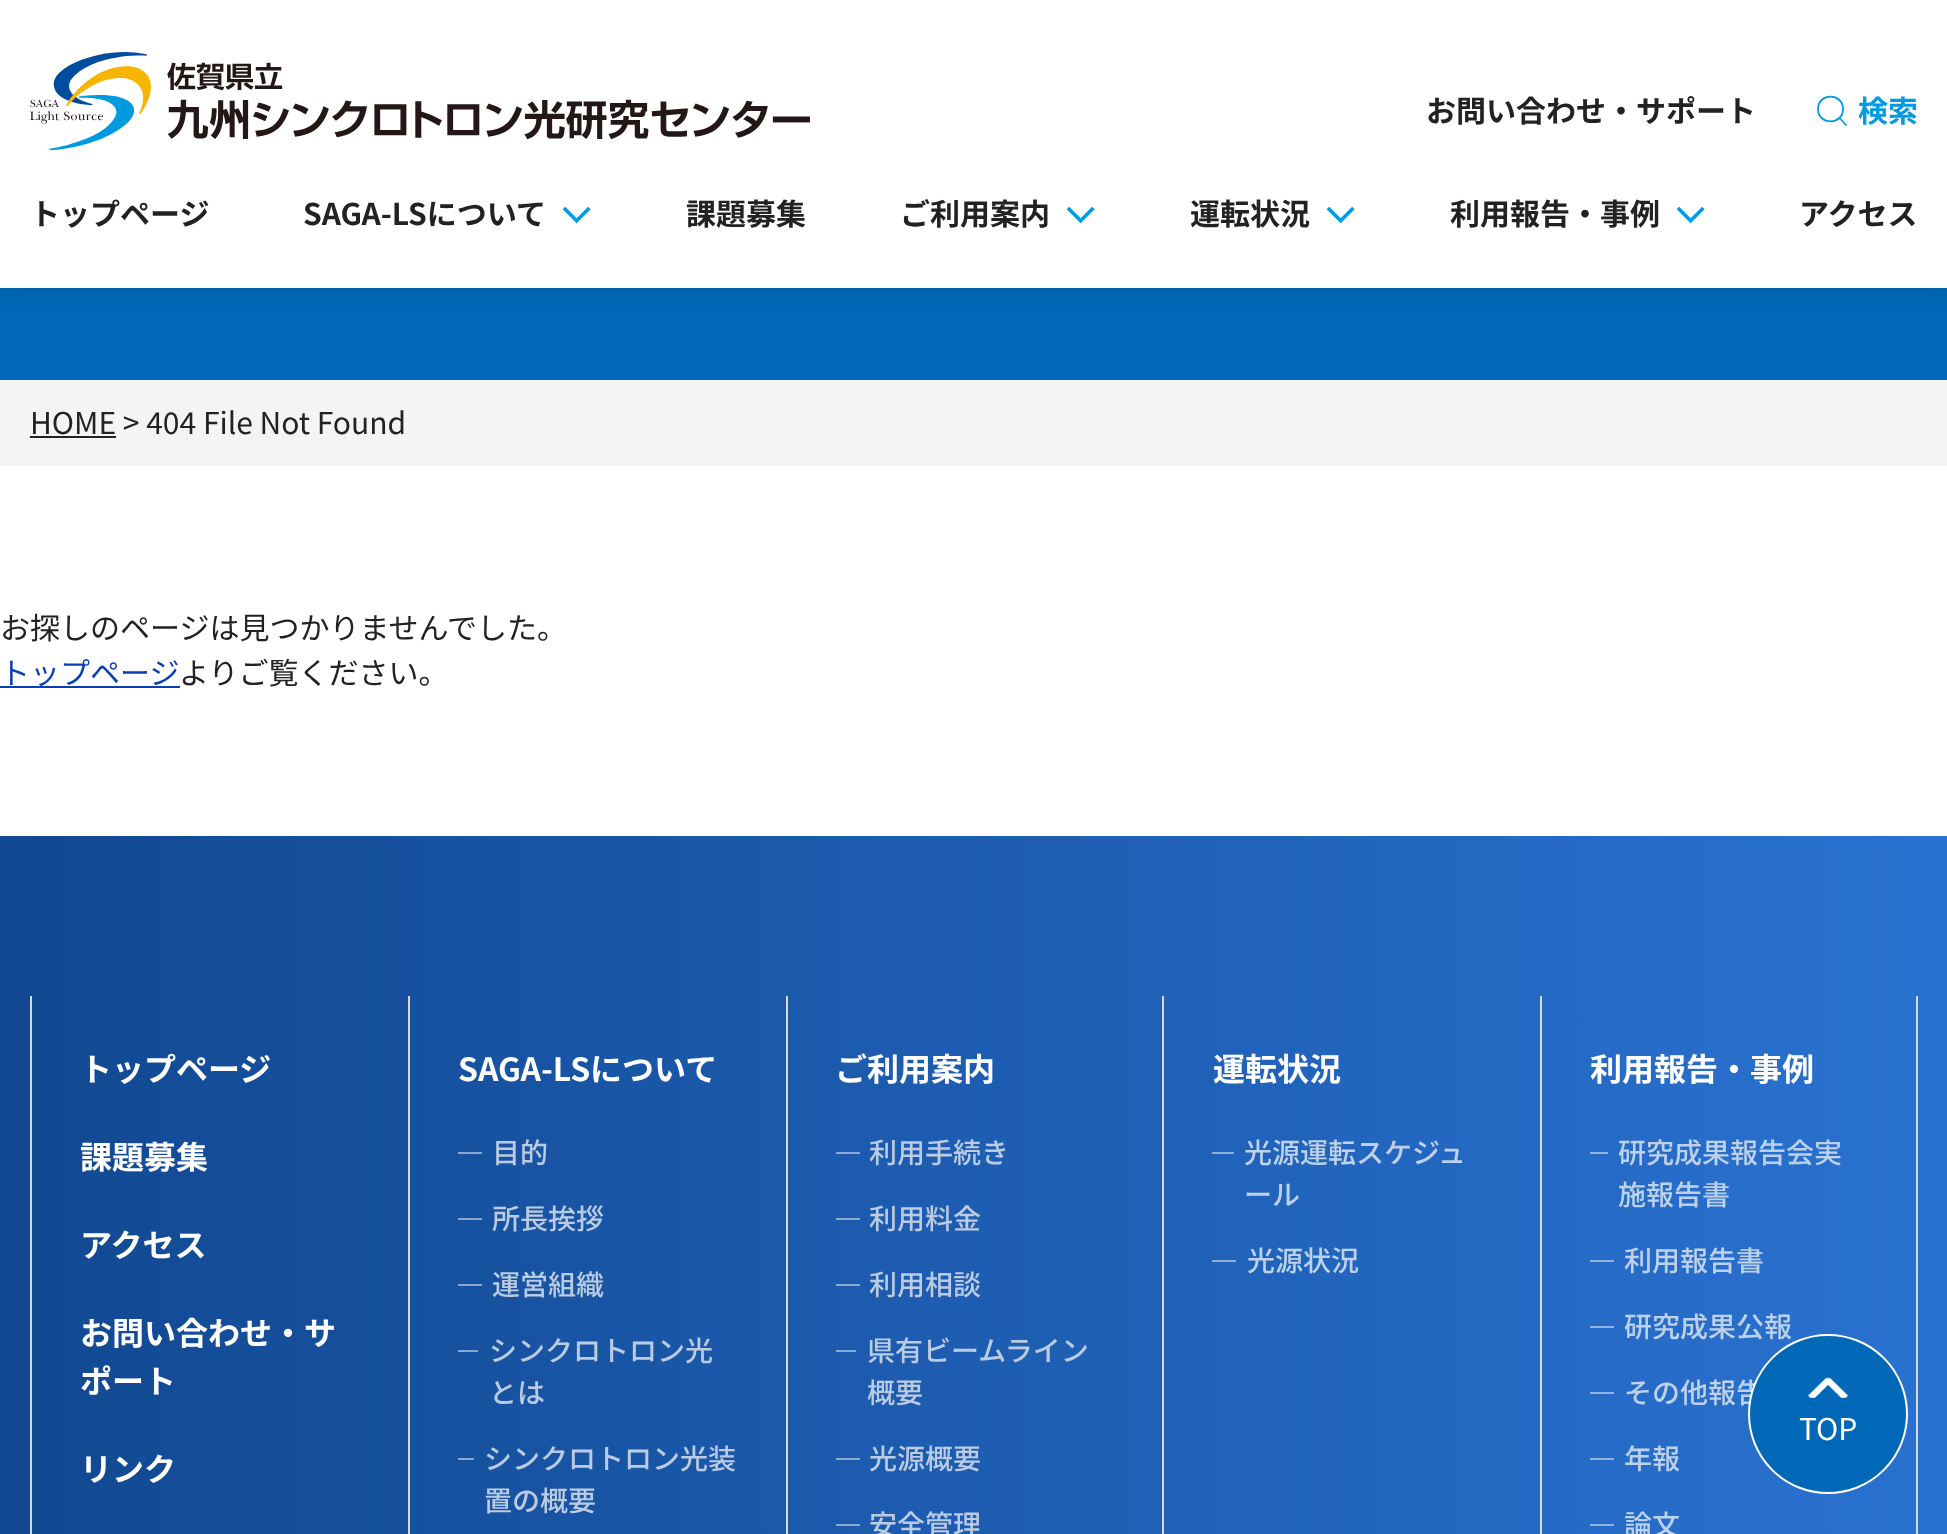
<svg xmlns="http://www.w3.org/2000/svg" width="1947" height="1534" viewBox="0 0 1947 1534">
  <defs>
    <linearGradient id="g1" gradientUnits="userSpaceOnUse" x1="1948" y1="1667" x2="0" y2="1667"><stop offset="0" stop-color="rgb(42,114,209)"/><stop offset="1" stop-color="rgb(17,72,145)"/></linearGradient>
  </defs>
  <rect width="100%" height="100%" fill="rgb(255,255,255)"/>
  <rect x="0" y="288" width="1947" height="92" fill="rgb(0,104,183)"/>
  <rect x="0" y="4" width="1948" height="288" fill="rgba(0,0,0,0.1)" filter="blur(10px)"/>
  <rect x="0" y="0" width="1947" height="288" fill="rgb(255,255,255)"/>
  <image x="30" y="52" width="780" height="98" href="pic1.png"/>
  <text x="1426" y="122" font-family="Noto Sans JP" font-size="30" font-weight="bold" fill="rgb(34,34,34)">お問い合わせ・サポート</text>
  <path d="M1846 125L1839.5 118M1843 109C1843 125.5 1818 125.5 1818 109C1818 92.5 1843 92.5 1843 109Z" fill="none" stroke="rgb(0,155,226)" stroke-width="1.8" stroke-linecap="round" stroke-linejoin="round"/>
  <text x="1858" y="122" font-family="Noto Sans JP" font-size="30" font-weight="bold" fill="rgb(0,155,226)">検索</text>
  <g font-family="Noto Sans JP" font-size="30" font-weight="bold" fill="rgb(34,34,34)">
    <text x="30" y="225">トップページ</text>
    <text x="303" y="225">SAGA-LSについて</text>
  </g>
  <image x="562" y="206" width="29" height="18" href="pic2.png"/>
  <g font-family="Noto Sans JP" font-size="30" font-weight="bold" fill="rgb(34,34,34)">
    <text x="686" y="225">課題募集</text>
    <text x="900" y="225">ご利用案内</text>
  </g>
  <image x="1066" y="206" width="29" height="18" href="pic3.png"/>
  <text x="1190" y="225" font-family="Noto Sans JP" font-size="30" font-weight="bold" fill="rgb(34,34,34)">運転状況</text>
  <image x="1326" y="206" width="29" height="18" href="pic2.png"/>
  <text x="1450" y="225" font-family="Noto Sans JP" font-size="30" font-weight="bold" fill="rgb(34,34,34)">利用報告・事例</text>
  <image x="1676" y="206" width="29" height="18" href="pic2.png"/>
  <text x="1799" y="225" font-family="Noto Sans JP" font-size="30" font-weight="bold" fill="rgb(34,34,34)">アクセス</text>
  <rect x="0" y="380" width="1947" height="86" fill="rgb(244,244,244)"/>
  <text x="30" y="434" font-family="Noto Sans JP" font-size="30" fill="rgb(34,34,34)">HOME &gt; 404 File Not Found</text>
  <rect x="30" y="436" width="86" height="2" fill="rgb(34,34,34)"/>
  <text x="0" y="639" font-family="Noto Sans JP" font-size="30" fill="rgb(34,34,34)">お探しのページは見つかりませんでした。</text>
  <rect x="0" y="686" width="180" height="2" fill="rgb(10,62,182)"/>
  <text x="0" y="684" font-family="Noto Sans JP" font-size="30" fill="rgb(10,62,182)">トップページ</text>
  <text x="179" y="684" font-family="Noto Sans JP" font-size="30" fill="rgb(34,34,34)">よりご覧ください。</text>
  <rect x="0" y="836" width="1947" height="698" fill="url(#g1)"/>
  <rect x="30" y="996" width="2" height="538" fill="rgb(217,217,217)"/>
  <g font-family="Noto Sans JP" font-size="32" font-weight="bold" fill="rgb(255,255,255)">
    <text x="80" y="1081">トップページ</text>
    <text x="80" y="1169">課題募集</text>
    <text x="80" y="1257">アクセス</text>
    <text>
      <tspan x="80" y="1345">お問い合わせ・サ</tspan>
      <tspan x="80" y="1393">ポート</tspan>
    </text>
    <text x="80" y="1481">リンク</text>
  </g>
  <rect x="408" y="996" width="2" height="538" fill="rgb(217,217,217)"/>
  <text x="458" y="1081" font-family="Noto Sans JP" font-size="32" font-weight="bold" fill="rgb(255,255,255)">SAGA-LSについて</text>
  <rect x="458" y="1152" width="24" height="2" fill="rgb(137,167,207)"/>
  <text x="492" y="1163" font-family="Noto Sans JP" font-size="28" font-weight="500" fill="rgb(186,203,227)">目的</text>
  <rect x="458" y="1218" width="24" height="2" fill="rgb(137,167,207)"/>
  <text x="492" y="1229" font-family="Noto Sans JP" font-size="28" font-weight="500" fill="rgb(186,203,227)">所長挨拶</text>
  <rect x="458" y="1284" width="24" height="2" fill="rgb(137,167,207)"/>
  <text x="492" y="1295" font-family="Noto Sans JP" font-size="28" font-weight="500" fill="rgb(186,203,227)">運営組織</text>
  <rect x="458" y="1350" width="20" height="2" fill="rgb(137,167,207)"/>
  <g font-family="Noto Sans JP" font-size="28" font-weight="500" fill="rgb(186,203,227)">
    <text>
      <tspan x="489" y="1361">シンクロトロン光</tspan>
      <tspan x="489" y="1403">とは</tspan>
    </text>
  </g>
  <rect x="458" y="1458" width="16" height="2" fill="rgb(137,167,207)"/>
  <g font-family="Noto Sans JP" font-size="28" font-weight="500" fill="rgb(186,203,227)">
    <text>
      <tspan x="484" y="1469">シンクロトロン光装</tspan>
      <tspan x="484" y="1511">置の概要</tspan>
    </text>
  </g>
  <rect x="786" y="996" width="2" height="538" fill="rgb(217,217,217)"/>
  <text x="835" y="1081" font-family="Noto Sans JP" font-size="32" font-weight="bold" fill="rgb(255,255,255)">ご利用案内</text>
  <rect x="836" y="1152" width="24" height="2" fill="rgb(139,171,213)"/>
  <text x="869" y="1163" font-family="Noto Sans JP" font-size="28" font-weight="500" fill="rgb(186,203,227)">利用手続き</text>
  <rect x="836" y="1218" width="24" height="2" fill="rgb(139,171,213)"/>
  <text x="869" y="1229" font-family="Noto Sans JP" font-size="28" font-weight="500" fill="rgb(186,203,227)">利用料金</text>
  <rect x="836" y="1284" width="24" height="2" fill="rgb(139,171,213)"/>
  <text x="869" y="1295" font-family="Noto Sans JP" font-size="28" font-weight="500" fill="rgb(186,203,227)">利用相談</text>
  <rect x="836" y="1350" width="20" height="2" fill="rgb(139,171,213)"/>
  <g font-family="Noto Sans JP" font-size="28" font-weight="500" fill="rgb(186,203,227)">
    <text>
      <tspan x="867" y="1361">県有ビームライン</tspan>
      <tspan x="867" y="1403">概要</tspan>
    </text>
  </g>
  <rect x="836" y="1458" width="24" height="2" fill="rgb(139,171,213)"/>
  <text x="869" y="1469" font-family="Noto Sans JP" font-size="28" font-weight="500" fill="rgb(186,203,227)">光源概要</text>
  <rect x="836" y="1524" width="24" height="2" fill="rgb(139,171,213)"/>
  <text x="869" y="1535" font-family="Noto Sans JP" font-size="28" font-weight="500" fill="rgb(186,203,227)">安全管理</text>
  <rect x="1162" y="996" width="2" height="538" fill="rgb(217,217,217)"/>
  <text x="1213" y="1081" font-family="Noto Sans JP" font-size="32" font-weight="bold" fill="rgb(255,255,255)">運転状況</text>
  <rect x="1212" y="1152" width="22" height="2" fill="rgb(142,175,219)"/>
  <g font-family="Noto Sans JP" font-size="28" font-weight="500" fill="rgb(189,209,235)">
    <text>
      <tspan x="1244" y="1163">光源運転スケジュ</tspan>
      <tspan x="1244" y="1205">ール</tspan>
    </text>
  </g>
  <rect x="1212" y="1260" width="24" height="2" fill="rgb(142,175,219)"/>
  <text x="1247" y="1271" font-family="Noto Sans JP" font-size="28" font-weight="500" fill="rgb(189,209,235)">光源状況</text>
  <rect x="1916" y="996" width="2" height="538" fill="rgb(217,217,217)"/>
  <rect x="1540" y="996" width="2" height="538" fill="rgb(217,217,217)"/>
  <text x="1590" y="1081" font-family="Noto Sans JP" font-size="32" font-weight="bold" fill="rgb(255,255,255)">利用報告・事例</text>
  <rect x="1590" y="1152" width="18" height="2" fill="rgb(144,179,226)"/>
  <g font-family="Noto Sans JP" font-size="28" font-weight="500" fill="rgb(189,209,235)">
    <text>
      <tspan x="1618" y="1163">研究成果報告会実</tspan>
      <tspan x="1618" y="1205">施報告書</tspan>
    </text>
  </g>
  <rect x="1590" y="1260" width="24" height="2" fill="rgb(144,179,226)"/>
  <text x="1624" y="1271" font-family="Noto Sans JP" font-size="28" font-weight="500" fill="rgb(189,209,235)">利用報告書</text>
  <rect x="1590" y="1326" width="24" height="2" fill="rgb(144,179,226)"/>
  <text x="1624" y="1337" font-family="Noto Sans JP" font-size="28" font-weight="500" fill="rgb(189,209,235)">研究成果公報</text>
  <rect x="1590" y="1392" width="24" height="2" fill="rgb(144,179,226)"/>
  <text x="1624" y="1403" font-family="Noto Sans JP" font-size="28" font-weight="500" fill="rgb(189,209,235)">その他報告</text>
  <rect x="1590" y="1458" width="24" height="2" fill="rgb(144,179,226)"/>
  <text x="1624" y="1469" font-family="Noto Sans JP" font-size="28" font-weight="500" fill="rgb(189,209,235)">年報</text>
  <rect x="1590" y="1524" width="24" height="2" fill="rgb(144,179,226)"/>
  <text x="1624" y="1535" font-family="Noto Sans JP" font-size="28" font-weight="500" fill="rgb(189,209,235)">論文</text>
  <circle cx="1828" cy="1414" r="79" fill="rgb(0,104,183)" stroke="rgb(255,255,255)" stroke-width="2"/>
  <image x="1808" y="1377" width="40" height="21" href="pic4.png"/>
  <text x="1799" y="1440" font-family="Noto Sans JP" font-size="30" fill="rgb(255,255,255)">TOP</text>
</svg>
